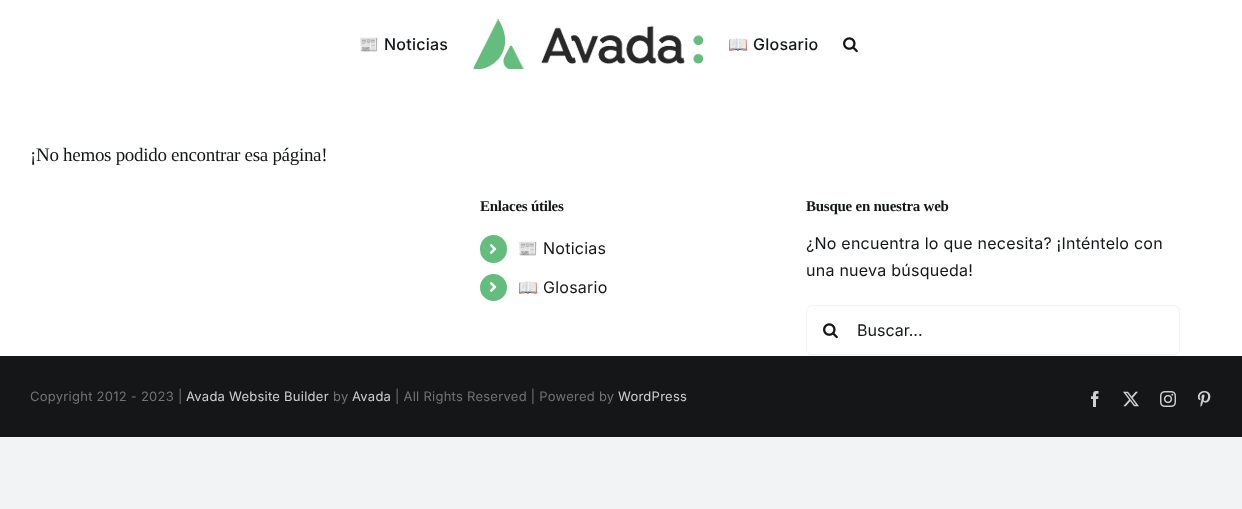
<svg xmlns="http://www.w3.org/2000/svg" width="1242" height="509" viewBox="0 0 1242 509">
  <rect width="100%" height="100%" fill="rgb(242,243,245)"/>
  <rect x="0" y="0" width="1242" height="356" fill="rgb(255,255,255)"/>
  <text x="359" y="50" font-family="Noto Color Emoji" font-size="16" letter-spacing="0.25" fill="rgb(20,22,23)">📰</text>
  <text x="384" y="50" font-family="Inter" font-size="16" font-weight="500" letter-spacing="0.25" fill="rgb(20,22,23)">Noticias</text>
  <image x="473" y="19" width="230" height="50" href="pic1.png"/>
  <text x="728" y="50" font-family="Noto Color Emoji" font-size="16" letter-spacing="0.25" fill="rgb(20,22,23)">📖</text>
  <text x="753" y="50" font-family="Inter" font-size="16" font-weight="500" letter-spacing="0.25" fill="rgb(20,22,23)">Glosario</text>
  <image x="843" y="37" width="15" height="16" href="pic2.png"/>
  <text x="30" y="161" font-family="Liberation Serif" font-size="19" letter-spacing="-0.3" fill="rgb(20,22,23)">¡No hemos podido encontrar esa página!</text>
  <text x="480" y="211" font-family="Liberation Serif" font-size="15" font-weight="bold" letter-spacing="-0.25" fill="rgb(20,22,23)">Enlaces útiles</text>
  <rect x="480" y="235" width="27" height="28" rx="13.5" fill="rgb(101,189,125)"/>
  <image x="489" y="244" width="8" height="10" href="pic3.png"/>
  <text x="518" y="254" font-family="Noto Color Emoji" font-size="16" letter-spacing="0.25" fill="rgb(20,22,23)">📰</text>
  <text x="543" y="254" font-family="Inter" font-size="16" letter-spacing="0.25" fill="rgb(20,22,23)">Noticias</text>
  <circle cx="493.5" cy="287.5" r="13.5" fill="rgb(101,189,125)"/>
  <image x="489" y="282" width="8" height="10" href="pic3.png"/>
  <text x="518" y="293" font-family="Noto Color Emoji" font-size="16" letter-spacing="0.25" fill="rgb(20,22,23)">📖</text>
  <text x="543" y="293" font-family="Inter" font-size="16" letter-spacing="0.25" fill="rgb(20,22,23)">Glosario</text>
  <text x="806" y="211" font-family="Liberation Serif" font-size="15" font-weight="bold" letter-spacing="-0.25" fill="rgb(20,22,23)">Busque en nuestra web</text>
  <g font-family="Inter" font-size="16" letter-spacing="0.25" fill="rgb(20,22,23)">
    <text>
      <tspan x="806" y="249">¿No encuentra lo que necesita? ¡Inténtelo con</tspan>
      <tspan x="806" y="276">una nueva búsqueda!</tspan>
    </text>
  </g>
  <rect x="806.5" y="305.5" width="373" height="49" rx="5.5" fill="none" stroke="rgb(242,243,245)"/>
  <image x="823" y="323" width="15" height="16" href="pic2.png"/>
  <text x="857" y="336" font-family="Inter" font-size="16" fill="rgb(20,22,23)">Buscar...</text>
  <rect x="0" y="356" width="1242" height="81" fill="rgb(20,22,23)"/>
  <text x="30" y="401" font-family="Inter" font-size="13" letter-spacing="0.25" fill="rgb(114,115,116)">Copyright 2012 - 2023 |</text>
  <text x="186" y="401" font-family="Inter" font-size="13" letter-spacing="0.25" fill="rgb(208,208,209)">Avada Website Builder</text>
  <text x="333" y="401" font-family="Inter" font-size="13" letter-spacing="0.25" fill="rgb(114,115,116)">by</text>
  <text x="352" y="401" font-family="Inter" font-size="13" letter-spacing="0.25" fill="rgb(208,208,209)">Avada</text>
  <text x="395" y="401" font-family="Inter" font-size="13" letter-spacing="0.25" fill="rgb(114,115,116)">| All Rights Reserved | Powered by</text>
  <text x="618" y="401" font-family="Inter" font-size="13" letter-spacing="0.25" fill="rgb(208,208,209)">WordPress</text>
  <image x="1091" y="391" width="8" height="16" href="pic4.png"/>
  <image x="1123" y="391" width="16" height="16" href="pic5.png"/>
  <image x="1160" y="391" width="16" height="16" href="pic6.png"/>
  <image x="1197" y="391" width="14" height="16" href="pic7.png"/>
</svg>
